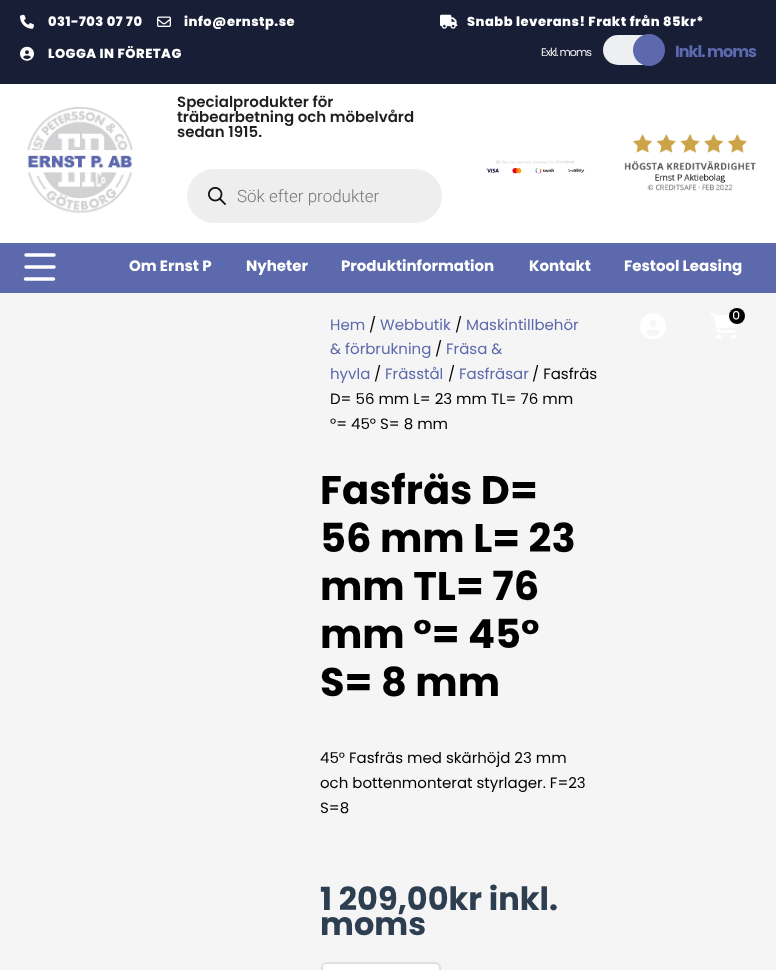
<svg xmlns="http://www.w3.org/2000/svg" width="776" height="970" viewBox="0 0 776 970">
  <rect width="100%" height="100%" fill="rgb(245,245,245)"/>
  <rect x="0" y="0" width="776" height="84" fill="rgb(25,30,55)"/>
  <image x="20" y="14" width="14" height="15" href="pic1.png"/>
  <text x="48" y="26" font-family="Poppins" font-size="13" font-weight="800" letter-spacing="0.5" fill="rgb(255,255,255)">031-703 07 70</text>
  <image x="157" y="16" width="14" height="11" href="pic2.png"/>
  <text x="184" y="26" font-family="Poppins" font-size="13" font-weight="800" letter-spacing="0.5" fill="rgb(255,255,255)">info@ernstp.se</text>
  <image x="440" y="14" width="18" height="15" href="pic3.png"/>
  <text x="467" y="26" font-family="Poppins" font-size="13" font-weight="800" letter-spacing="0.5" fill="rgb(255,255,255)">Snabb leverans! Frakt från 85kr*</text>
  <image x="20" y="46" width="14" height="15" href="pic4.png"/>
  <text x="48" y="58" font-family="Poppins" font-size="13" font-weight="800" letter-spacing="0.5" fill="rgb(255,255,255)">LOGGA IN FÖRETAG</text>
  <text x="541" y="56" font-family="Poppins" font-size="11" letter-spacing="-1" fill="rgb(237,239,240)">Exkl. moms</text>
  <rect x="603" y="35" width="60" height="30" rx="15" fill="rgb(237,239,240)"/>
  <circle cx="649" cy="50" r="16" fill="rgb(92,105,173)"/>
  <text x="675" y="57" font-family="Poppins" font-size="16" font-weight="bold" letter-spacing="-1" fill="rgb(92,105,173)">Inkl. moms</text>
  <rect x="0" y="84" width="776" height="159" fill="rgb(255,255,255)"/>
  <image x="27" y="107" width="106" height="106" href="pic5.png"/>
  <g font-family="Poppins" font-size="15" font-weight="600" fill="rgb(31,31,31)">
    <text>
      <tspan x="177" y="107">Specialprodukter för</tspan>
      <tspan x="177" y="122">träbearbetning och möbelvård</tspan>
      <tspan x="177" y="137">sedan 1915.</tspan>
    </text>
  </g>
  <rect x="187" y="169" width="255" height="54" rx="27" fill="rgb(238,238,238)"/>
  <image x="208" y="187" width="18" height="18" href="pic6.png"/>
  <text x="237" y="202" font-family="Roboto" font-size="17" font-weight="300" fill="rgb(119,119,119)">Sök efter produkter</text>
  <image x="486" y="159" width="99" height="15" href="pic7.png"/>
  <image x="624" y="134" width="132" height="57" href="pic8.png"/>
  <rect x="0" y="243" width="776" height="50" fill="rgb(92,105,173)"/>
  <path d="M54 255H26M54 267H26M53.5 279H25.5" fill="none" stroke="rgb(255,255,255)" stroke-width="3.5" stroke-linecap="round"/>
  <g font-family="Poppins" font-size="15" font-weight="bold" fill="rgb(255,255,255)">
    <text x="129" y="271">Om Ernst P</text>
    <text x="246" y="271">Nyheter</text>
    <text x="341" y="271">Produktinformation</text>
    <text x="529" y="271">Kontakt</text>
    <text x="624" y="271">Festool Leasing</text>
  </g>
  <image x="640" y="313" width="26" height="26" href="pic9.png"/>
  <image x="710" y="313" width="28" height="26" href="pic11.png"/>
  <circle cx="737" cy="316" r="8" fill="rgb(0,0,0)"/>
  <image x="733" y="310" width="7" height="10" href="pic10.png"/>
  <text x="330" y="330" font-family="Poppins" font-size="15" fill="rgb(92,105,173)">Hem</text>
  <text x="369" y="330" font-family="Poppins" font-size="15" fill="rgb(0,0,0)">/</text>
  <text x="380" y="330" font-family="Poppins" font-size="15" fill="rgb(92,105,173)">Webbutik</text>
  <text x="455" y="330" font-family="Poppins" font-size="15" fill="rgb(0,0,0)">/</text>
  <g font-family="Poppins" font-size="15" fill="rgb(92,105,173)">
    <text x="466" y="330">Maskintillbehör</text>
    <text x="330" y="354">&amp; förbrukning</text>
  </g>
  <text x="435" y="354" font-family="Poppins" font-size="15" fill="rgb(0,0,0)">/</text>
  <g font-family="Poppins" font-size="15" fill="rgb(92,105,173)">
    <text x="446" y="354">Fräsa &amp;</text>
    <text x="330" y="379">hyvla</text>
  </g>
  <text x="374" y="379" font-family="Poppins" font-size="15" fill="rgb(0,0,0)">/</text>
  <text x="385" y="379" font-family="Poppins" font-size="15" fill="rgb(92,105,173)">Frässtål</text>
  <text x="448" y="379" font-family="Poppins" font-size="15" fill="rgb(0,0,0)">/</text>
  <text x="459" y="379" font-family="Poppins" font-size="15" fill="rgb(92,105,173)">Fasfräsar</text>
  <g font-family="Poppins" font-size="15" fill="rgb(0,0,0)">
    <text x="532" y="379">/ Fasfräs</text>
    <text>
      <tspan x="330" y="404">D= 56 mm L= 23 mm TL= 76 mm</tspan>
      <tspan x="330" y="429">°= 45° S= 8 mm</tspan>
    </text>
  </g>
  <g font-family="Poppins" font-size="40" font-weight="bold" fill="rgb(0,0,0)">
    <text>
      <tspan x="320" y="504">Fasfräs D=</tspan>
      <tspan x="320" y="552">56 mm L= 23</tspan>
      <tspan x="320" y="600">mm TL= 76</tspan>
      <tspan x="320" y="648">mm °= 45°</tspan>
      <tspan x="320" y="696">S= 8 mm</tspan>
    </text>
  </g>
  <g font-family="Poppins" font-size="15" fill="rgb(0,0,0)">
    <text>
      <tspan x="320" y="763">45° Fasfräs med skärhöjd 23 mm</tspan>
      <tspan x="320" y="788">och bottenmonterat styrlager. F=23</tspan>
      <tspan x="320" y="813">S=8</tspan>
    </text>
  </g>
  <g font-family="Poppins" font-size="32" font-weight="bold" fill="rgb(44,62,80)">
    <text>
      <tspan x="320" y="910">1 209,00kr inkl.</tspan>
      <tspan x="320" y="935">moms</tspan>
    </text>
  </g>
  <rect x="322" y="963" width="118" height="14" rx="5" fill="rgb(255,255,255)" stroke="rgb(224,224,224)" stroke-width="2"/>
</svg>
